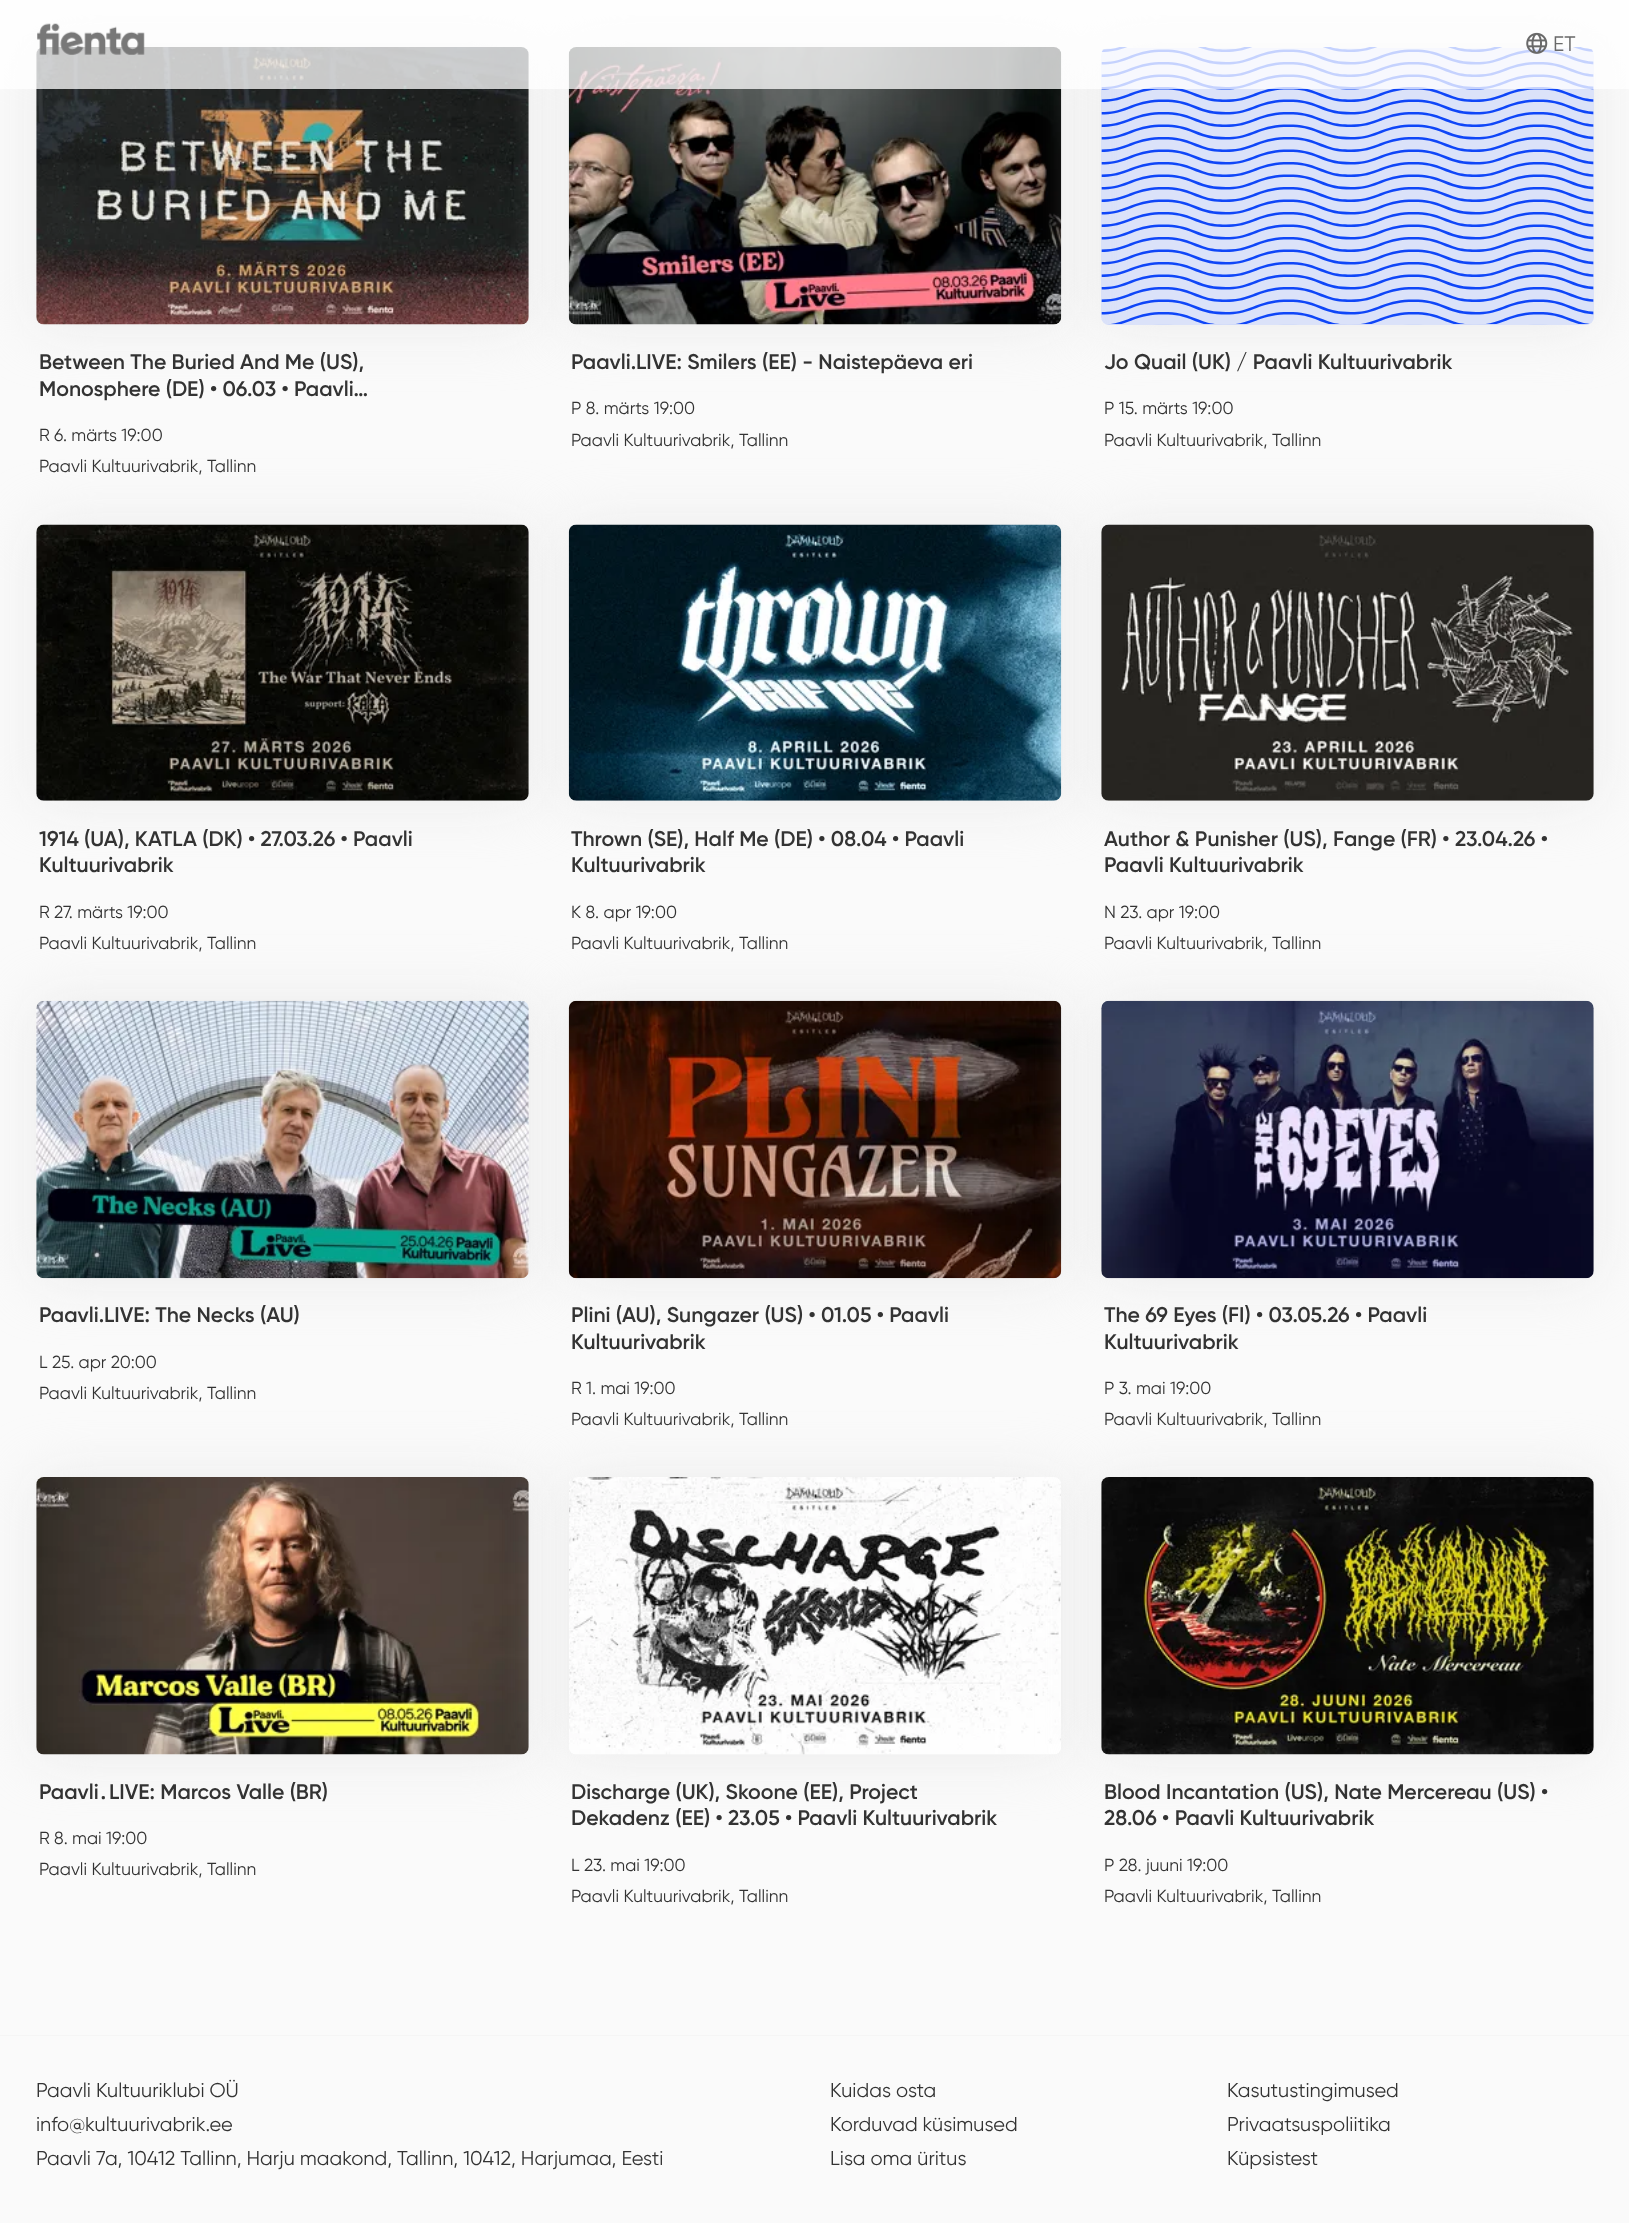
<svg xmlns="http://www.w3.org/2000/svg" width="1629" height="2223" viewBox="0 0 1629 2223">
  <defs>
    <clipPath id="clip1"><path d="M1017 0H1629V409H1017ZM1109 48H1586C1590.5 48 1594 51.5 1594 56V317C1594 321.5 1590.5 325 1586 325H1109C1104.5 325 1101 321.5 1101 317V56C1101 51.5 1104.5 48 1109 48Z" clip-rule="evenodd"/></clipPath>
  </defs>
  <rect width="100%" height="100%" fill="rgb(250,250,250)"/>
  <rect x="36" y="48" width="493" height="277" rx="8" fill="rgb(235,235,235)" filter="blur(27.5px)"/>
  <image x="36" y="47" width="493" height="278" href="pic3.png"/>
  <rect x="569" y="48" width="492" height="277" rx="8" fill="rgb(235,235,235)" filter="blur(27.5px)"/>
  <image x="568" y="47" width="494" height="278" href="pic4.png"/>
  <g clip-path="url(#clip1)">
    <rect x="1101" y="48" width="493" height="277" rx="8" fill="rgb(235,235,235)" filter="blur(27.5px)"/>
  </g>
  <image x="1101" y="47" width="493" height="278" href="pic5.png"/>
  <rect x="1101" y="48" width="493" height="277" rx="8" fill="rgba(16,71,248,0.13)"/>
  <rect x="0" y="0" width="1629" height="89" fill="rgba(255,255,255,0.76)"/>
  <image x="37" y="23" width="108" height="32" href="pic1.png"/>
  <image x="1526" y="32" width="22" height="22" href="pic2.png"/>
  <text x="1553" y="51" font-family="Gilroy" font-size="21" fill="rgb(105,105,105)">ET</text>
  <g font-family="Gilroy" font-size="21.25" font-weight="600" fill="rgb(51,51,51)">
    <text>
      <tspan x="39" y="369">Between The Buried And Me (US),</tspan>
      <tspan x="39" y="396">Monosphere (DE) • 06.03 • Paavli…</tspan>
    </text>
  </g>
  <g font-family="Gilroy" font-size="17.5" fill="rgb(51,51,51)">
    <text>
      <tspan x="39" y="441">R 6. märts 19:00</tspan>
      <tspan x="39" y="472">Paavli Kultuurivabrik, Tallinn</tspan>
    </text>
  </g>
  <text x="571" y="369" font-family="Gilroy" font-size="21.25" font-weight="600" fill="rgb(51,51,51)">Paavli.LIVE: Smilers (EE) - Naistepäeva eri</text>
  <g font-family="Gilroy" font-size="17.5" fill="rgb(51,51,51)">
    <text>
      <tspan x="571" y="414">P 8. märts 19:00</tspan>
      <tspan x="571" y="446">Paavli Kultuurivabrik, Tallinn</tspan>
    </text>
  </g>
  <text x="1104" y="369" font-family="Gilroy" font-size="21.25" font-weight="600" fill="rgb(51,51,51)">Jo Quail (UK) / Paavli Kultuurivabrik</text>
  <g font-family="Gilroy" font-size="17.5" fill="rgb(51,51,51)">
    <text>
      <tspan x="1104" y="414">P 15. märts 19:00</tspan>
      <tspan x="1104" y="446">Paavli Kultuurivabrik, Tallinn</tspan>
    </text>
  </g>
  <rect x="36" y="525" width="493" height="276" rx="8" fill="rgb(235,235,235)" filter="blur(27.5px)"/>
  <image x="36" y="524" width="493" height="277" href="pic6.png"/>
  <g font-family="Gilroy" font-size="21.25" font-weight="600" fill="rgb(51,51,51)">
    <text>
      <tspan x="39" y="846">1914 (UA), KATLA (DK) • 27.03.26 • Paavli</tspan>
      <tspan x="39" y="872">Kultuurivabrik</tspan>
    </text>
  </g>
  <g font-family="Gilroy" font-size="17.5" fill="rgb(51,51,51)">
    <text>
      <tspan x="39" y="918">R 27. märts 19:00</tspan>
      <tspan x="39" y="949">Paavli Kultuurivabrik, Tallinn</tspan>
    </text>
  </g>
  <rect x="569" y="525" width="492" height="276" rx="8" fill="rgb(235,235,235)" filter="blur(27.5px)"/>
  <image x="568" y="524" width="494" height="277" href="pic7.png"/>
  <g font-family="Gilroy" font-size="21.25" font-weight="600" fill="rgb(51,51,51)">
    <text>
      <tspan x="571" y="846">Thrown (SE), Half Me (DE) • 08.04 • Paavli</tspan>
      <tspan x="571" y="872">Kultuurivabrik</tspan>
    </text>
  </g>
  <g font-family="Gilroy" font-size="17.5" fill="rgb(51,51,51)">
    <text>
      <tspan x="571" y="918">K 8. apr 19:00</tspan>
      <tspan x="571" y="949">Paavli Kultuurivabrik, Tallinn</tspan>
    </text>
  </g>
  <rect x="1101" y="525" width="493" height="276" rx="8" fill="rgb(235,235,235)" filter="blur(27.5px)"/>
  <image x="1101" y="524" width="493" height="277" href="pic8.png"/>
  <g font-family="Gilroy" font-size="21.25" font-weight="600" fill="rgb(51,51,51)">
    <text>
      <tspan x="1104" y="846">Author &amp; Punisher (US), Fange (FR) • 23.04.26 •</tspan>
      <tspan x="1104" y="872">Paavli Kultuurivabrik</tspan>
    </text>
  </g>
  <g font-family="Gilroy" font-size="17.5" fill="rgb(51,51,51)">
    <text>
      <tspan x="1104" y="918">N 23. apr 19:00</tspan>
      <tspan x="1104" y="949">Paavli Kultuurivabrik, Tallinn</tspan>
    </text>
  </g>
  <rect x="36" y="1001" width="493" height="278" rx="8" fill="rgb(235,235,235)" filter="blur(27.5px)"/>
  <image x="36" y="1000" width="493" height="279" href="pic9.png"/>
  <text x="39" y="1322" font-family="Gilroy" font-size="21.25" font-weight="600" fill="rgb(51,51,51)">Paavli.LIVE: The Necks (AU)</text>
  <g font-family="Gilroy" font-size="17.5" fill="rgb(51,51,51)">
    <text>
      <tspan x="39" y="1368">L 25. apr 20:00</tspan>
      <tspan x="39" y="1399">Paavli Kultuurivabrik, Tallinn</tspan>
    </text>
  </g>
  <rect x="569" y="1001" width="492" height="278" rx="8" fill="rgb(235,235,235)" filter="blur(27.5px)"/>
  <image x="568" y="1000" width="494" height="279" href="pic10.png"/>
  <g font-family="Gilroy" font-size="21.25" font-weight="600" fill="rgb(51,51,51)">
    <text>
      <tspan x="571" y="1322">Plini (AU), Sungazer (US) • 01.05 • Paavli</tspan>
      <tspan x="571" y="1349">Kultuurivabrik</tspan>
    </text>
  </g>
  <g font-family="Gilroy" font-size="17.5" fill="rgb(51,51,51)">
    <text>
      <tspan x="571" y="1394">R 1. mai 19:00</tspan>
      <tspan x="571" y="1425">Paavli Kultuurivabrik, Tallinn</tspan>
    </text>
  </g>
  <rect x="1101" y="1001" width="493" height="278" rx="8" fill="rgb(235,235,235)" filter="blur(27.5px)"/>
  <image x="1101" y="1000" width="493" height="279" href="pic11.png"/>
  <g font-family="Gilroy" font-size="21.25" font-weight="600" fill="rgb(51,51,51)">
    <text>
      <tspan x="1104" y="1322">The 69 Eyes (FI) • 03.05.26 • Paavli</tspan>
      <tspan x="1104" y="1349">Kultuurivabrik</tspan>
    </text>
  </g>
  <g font-family="Gilroy" font-size="17.5" fill="rgb(51,51,51)">
    <text>
      <tspan x="1104" y="1394">P 3. mai 19:00</tspan>
      <tspan x="1104" y="1425">Paavli Kultuurivabrik, Tallinn</tspan>
    </text>
  </g>
  <rect x="36" y="1478" width="493" height="277" rx="8" fill="rgb(235,235,235)" filter="blur(27.5px)"/>
  <image x="36" y="1477" width="493" height="278" href="pic12.png"/>
  <text x="39" y="1799" font-family="Gilroy" font-size="21.25" font-weight="600" fill="rgb(51,51,51)">Paavli</text>
  <text x="98" y="1799" font-family="Noto Sans" font-size="21.25" font-weight="600" fill="rgb(51,51,51)">․</text>
  <text x="109" y="1799" font-family="Gilroy" font-size="21.25" font-weight="600" fill="rgb(51,51,51)">LIVE: Marcos Valle (BR)</text>
  <g font-family="Gilroy" font-size="17.5" fill="rgb(51,51,51)">
    <text>
      <tspan x="39" y="1844">R 8. mai 19:00</tspan>
      <tspan x="39" y="1875">Paavli Kultuurivabrik, Tallinn</tspan>
    </text>
  </g>
  <rect x="569" y="1478" width="492" height="277" rx="8" fill="rgb(235,235,235)" filter="blur(27.5px)"/>
  <image x="569" y="1477" width="492" height="278" href="pic13.png"/>
  <g font-family="Gilroy" font-size="21.25" font-weight="600" fill="rgb(51,51,51)">
    <text>
      <tspan x="571" y="1799">Discharge (UK), Skoone (EE), Project</tspan>
      <tspan x="571" y="1825">Dekadenz (EE) • 23.05 • Paavli Kultuurivabrik</tspan>
    </text>
  </g>
  <g font-family="Gilroy" font-size="17.5" fill="rgb(51,51,51)">
    <text>
      <tspan x="571" y="1871">L 23. mai 19:00</tspan>
      <tspan x="571" y="1902">Paavli Kultuurivabrik, Tallinn</tspan>
    </text>
  </g>
  <rect x="1101" y="1478" width="493" height="277" rx="8" fill="rgb(235,235,235)" filter="blur(27.5px)"/>
  <image x="1101" y="1477" width="493" height="278" href="pic14.png"/>
  <g font-family="Gilroy" font-size="21.25" font-weight="600" fill="rgb(51,51,51)">
    <text>
      <tspan x="1104" y="1799">Blood Incantation (US), Nate Mercereau (US) •</tspan>
      <tspan x="1104" y="1825">28.06 • Paavli Kultuurivabrik</tspan>
    </text>
  </g>
  <g font-family="Gilroy" font-size="17.5" fill="rgb(51,51,51)">
    <text>
      <tspan x="1104" y="1871">P 28. juuni 19:00</tspan>
      <tspan x="1104" y="1902">Paavli Kultuurivabrik, Tallinn</tspan>
    </text>
  </g>
  <rect x="0" y="2035" width="1629" height="1" fill="rgb(245,245,245)"/>
  <g font-family="Gilroy" font-size="20" fill="rgb(51,51,51)">
    <text>
      <tspan x="36" y="2097">Paavli Kultuuriklubi OÜ</tspan>
      <tspan x="36" y="2131">info@kultuurivabrik.ee</tspan>
      <tspan x="36" y="2165">Paavli 7a, 10412 Tallinn, Harju maakond, Tallinn, 10412, Harjumaa, Eesti</tspan>
    </text>
    <text>
      <tspan x="830" y="2097">Kuidas osta</tspan>
      <tspan x="830" y="2131">Korduvad küsimused</tspan>
      <tspan x="830" y="2165">Lisa oma üritus</tspan>
    </text>
    <text>
      <tspan x="1227" y="2097">Kasutustingimused</tspan>
      <tspan x="1227" y="2131">Privaatsuspoliitika</tspan>
      <tspan x="1227" y="2165">Küpsistest</tspan>
    </text>
  </g>
</svg>
